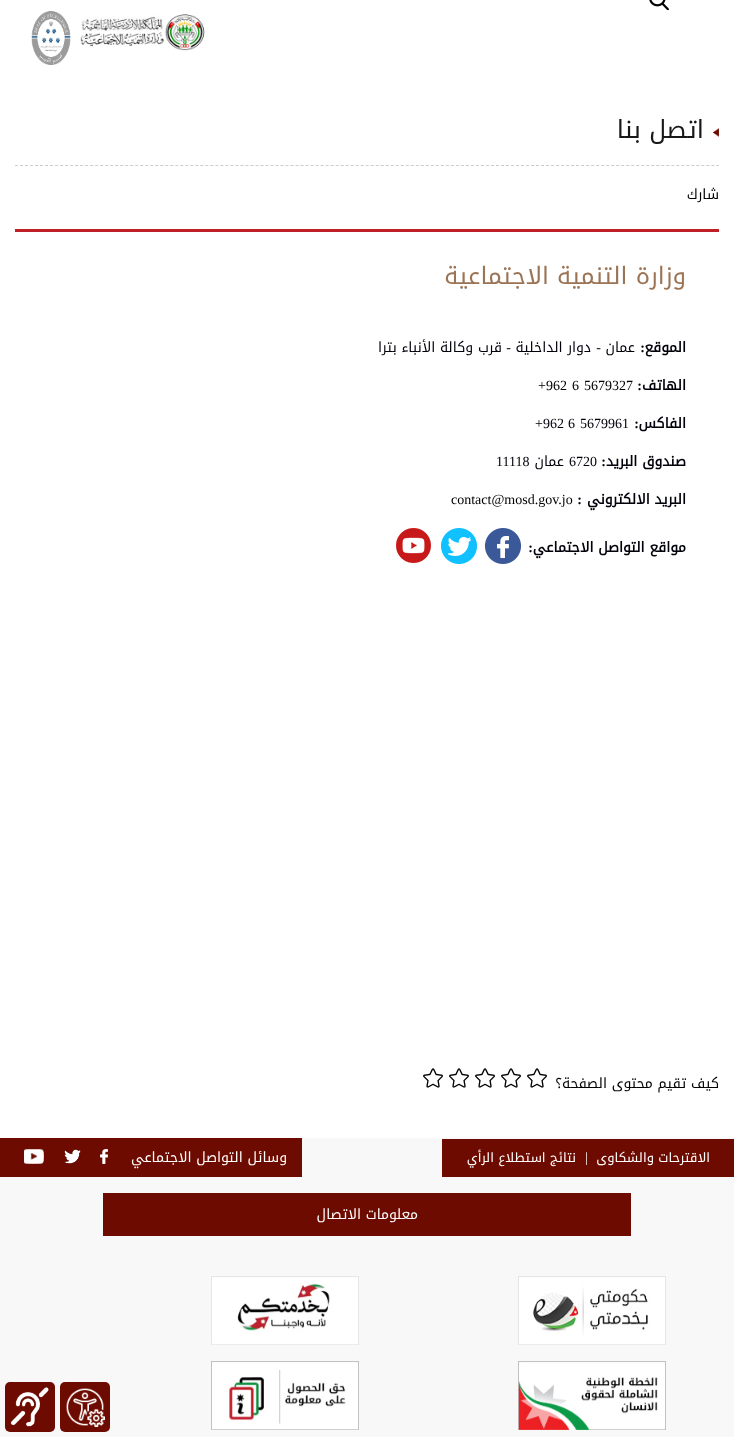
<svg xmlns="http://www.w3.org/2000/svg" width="734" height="1437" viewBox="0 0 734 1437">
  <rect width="100%" height="100%" fill="rgb(255,255,255)"/>
  <image x="649" y="0" width="20" height="10" href="pic1.png"/>
  <image x="80" y="14" width="125" height="37" href="pic2.png"/>
  <image x="31" y="11" width="40" height="54" href="pic3.png"/>
  <path d="M15 165.5H719" fill="none" stroke="rgb(204,204,204)" stroke-dasharray="3 2.01"/>
  <image x="713" y="128" width="6" height="9" href="pic4.png"/>
  <text x="704" y="138" font-family="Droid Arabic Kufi" font-size="25" direction="rtl" fill="rgb(24,24,24)">اتصل بنا</text>
  <text x="719" y="199" font-family="Droid Arabic Kufi" font-size="14" direction="rtl" fill="rgb(0,0,0)">شارك</text>
  <rect x="15" y="229" width="704" height="3" fill="rgb(190,32,37)"/>
  <text x="686" y="284" font-family="Droid Arabic Kufi" font-size="24" direction="rtl" fill="rgb(155,116,85)">وزارة التنمية الاجتماعية</text>
  <text x="686" y="352" font-family="Droid Arabic Kufi" font-size="14" font-weight="bold" direction="rtl" fill="rgb(0,0,10)">الموقع</text>
  <text x="645" y="352" font-family="Liberation Serif" font-size="14" font-weight="bold" direction="rtl" fill="rgb(0,0,10)">:</text>
  <text x="635" y="352" font-family="Droid Arabic Kufi" font-size="14" direction="rtl" fill="rgb(0,0,10)">عمان</text>
  <text x="601" y="352" font-family="Liberation Serif" font-size="14" direction="rtl" fill="rgb(0,0,10)">-</text>
  <text x="591" y="352" font-family="Droid Arabic Kufi" font-size="14" direction="rtl" fill="rgb(0,0,10)">دوار الداخلية</text>
  <text x="511" y="352" font-family="Liberation Serif" font-size="14" direction="rtl" fill="rgb(0,0,10)">-</text>
  <text x="502" y="352" font-family="Droid Arabic Kufi" font-size="14" direction="rtl" fill="rgb(0,0,10)">قرب وكالة الأنباء بترا</text>
  <text x="686" y="390" font-family="Droid Arabic Kufi" font-size="14" font-weight="bold" direction="rtl" fill="rgb(0,0,10)">الهاتف</text>
  <text x="642" y="390" font-family="Liberation Serif" font-size="14" font-weight="bold" direction="rtl" fill="rgb(0,0,10)">:</text>
  <g font-family="Liberation Serif" font-size="14" fill="rgb(0,0,0)">
    <text x="584" y="390">5679327</text>
    <text x="572" y="390">6</text>
    <text x="538" y="390">+962</text>
  </g>
  <text x="686" y="428" font-family="Droid Arabic Kufi" font-size="14" font-weight="bold" direction="rtl" fill="rgb(0,0,10)">الفاكس</text>
  <text x="639" y="428" font-family="Liberation Serif" font-size="14" font-weight="bold" direction="rtl" fill="rgb(0,0,10)">:</text>
  <g font-family="Liberation Serif" font-size="14" fill="rgb(0,0,10)">
    <text x="580" y="428">5679961</text>
    <text x="568" y="428">6</text>
    <text x="535" y="428">+962</text>
  </g>
  <text x="686" y="466" font-family="Droid Arabic Kufi" font-size="14" font-weight="bold" direction="rtl" fill="rgb(0,0,10)">صندوق البريد</text>
  <text x="606" y="466" font-family="Liberation Serif" font-size="14" font-weight="bold" direction="rtl" fill="rgb(0,0,10)">:</text>
  <text x="569" y="466" font-family="Liberation Serif" font-size="14" fill="rgb(0,0,10)">6720</text>
  <text x="564" y="466" font-family="Droid Arabic Kufi" font-size="14" direction="rtl" fill="rgb(0,0,10)">عمان</text>
  <text x="496" y="466" font-family="Liberation Serif" font-size="14" fill="rgb(0,0,10)">11118</text>
  <text x="686" y="504" font-family="Droid Arabic Kufi" font-size="14" font-weight="bold" direction="rtl" fill="rgb(0,0,10)">البريد الالكتروني</text>
  <text x="582" y="504" font-family="Liberation Serif" font-size="14" font-weight="bold" direction="rtl" fill="rgb(0,0,10)">:</text>
  <text x="451" y="504" font-family="Liberation Serif" font-size="14" fill="rgb(0,0,0)">contact@mosd.gov.jo</text>
  <text x="686" y="552" font-family="Droid Arabic Kufi" font-size="14" font-weight="bold" direction="rtl" fill="rgb(0,0,10)">مواقع التواصل الاجتماعي</text>
  <text x="533" y="552" font-family="Liberation Serif" font-size="14" font-weight="bold" direction="rtl" fill="rgb(0,0,10)">:</text>
  <image x="484" y="528" width="37" height="36" href="pic5.png"/>
  <image x="441" y="528" width="37" height="36" href="pic6.png"/>
  <image x="396" y="528" width="35" height="35" href="pic7.png"/>
  <text x="719" y="1088" font-family="Droid Arabic Kufi" font-size="14" direction="rtl" fill="rgb(0,0,0)">كيف تقيم محتوى الصفحة؟</text>
  <image x="527" y="1068" width="20" height="20" href="pic8.png"/>
  <image x="501" y="1068" width="20" height="20" href="pic8.png"/>
  <image x="475" y="1068" width="20" height="20" href="pic8.png"/>
  <image x="449" y="1068" width="20" height="20" href="pic8.png"/>
  <image x="423" y="1068" width="20" height="20" href="pic8.png"/>
  <rect x="0" y="1138" width="734" height="299" fill="rgb(248,248,248)"/>
  <rect x="442" y="1139" width="292" height="38" fill="rgb(109,11,0)"/>
  <text x="710" y="1162" font-family="Droid Arabic Kufi" font-size="13" direction="rtl" fill="rgb(255,255,255)">الاقترحات والشكاوى</text>
  <text x="585" y="1162" font-family="Liberation Serif" font-size="14" fill="rgb(255,255,255)">|</text>
  <text x="576" y="1162" font-family="Droid Arabic Kufi" font-size="13" direction="rtl" fill="rgb(255,255,255)">نتائج استطلاع الرأي</text>
  <rect x="0" y="1138" width="302" height="39" fill="rgb(109,11,0)"/>
  <text x="287" y="1162" font-family="Droid Arabic Kufi" font-size="14" direction="rtl" fill="rgb(255,255,255)">وسائل التواصل الاجتماعي</text>
  <image x="100" y="1149" width="8" height="15" href="pic9.png"/>
  <image x="64" y="1149" width="17" height="15" href="pic10.png"/>
  <image x="24" y="1149" width="20" height="15" href="pic11.png"/>
  <rect x="103" y="1193" width="528" height="43" fill="rgb(109,11,0)"/>
  <text x="418" y="1219" font-family="Droid Arabic Kufi" font-size="14" direction="rtl" fill="rgb(255,255,255)">معلومات الاتصال</text>
  <image x="518" y="1276" width="148" height="69" href="pic12.png"/>
  <image x="211" y="1276" width="148" height="69" href="pic13.png"/>
  <image x="518" y="1361" width="148" height="69" href="pic14.png"/>
  <image x="211" y="1361" width="148" height="69" href="pic15.png"/>
  <rect x="60" y="1382" width="50" height="50" rx="5" fill="rgb(109,11,0)"/>
  <image x="66" y="1388" width="39" height="39" href="pic16.png"/>
  <rect x="5" y="1382" width="50" height="50" rx="5" fill="rgb(109,11,0)"/>
  <image x="10" y="1387" width="39" height="40" href="pic17.png"/>
</svg>
